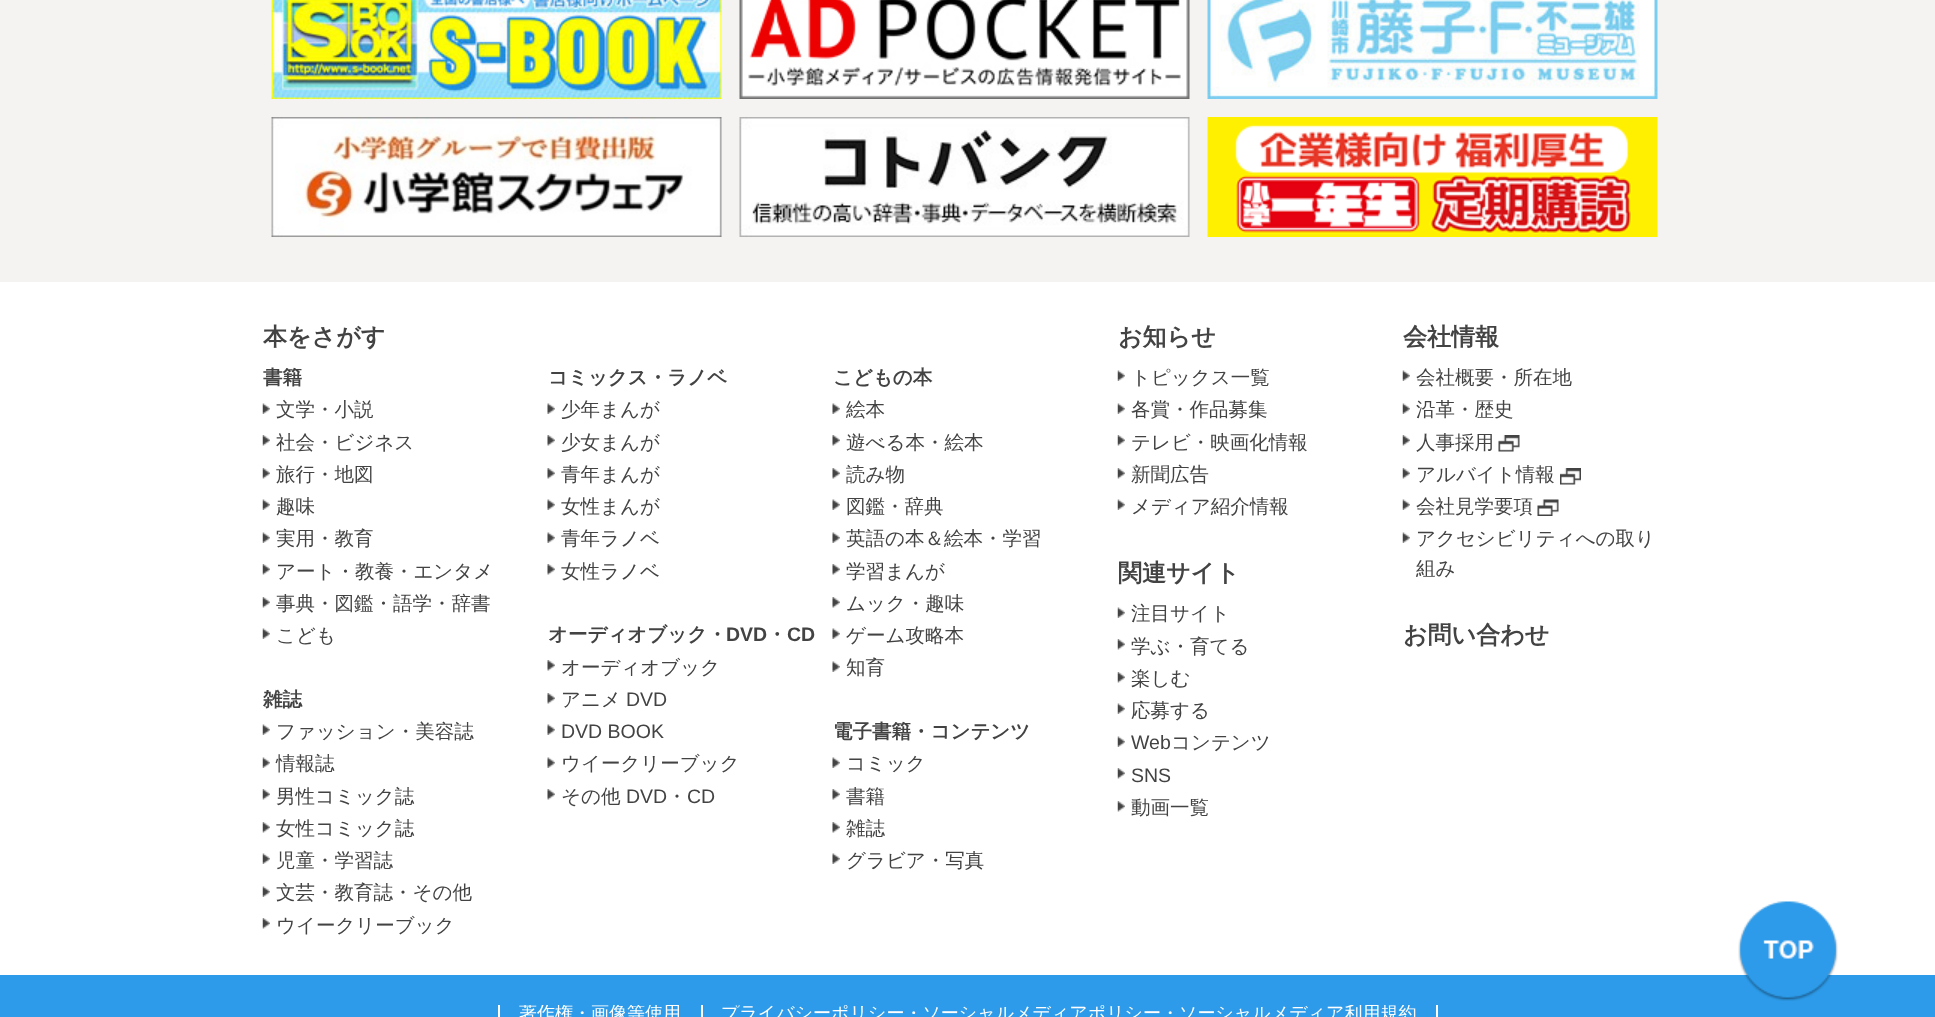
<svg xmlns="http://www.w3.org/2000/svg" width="1935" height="1017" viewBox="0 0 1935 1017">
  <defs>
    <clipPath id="clip1"><rect x="248" y="1005" width="1440" height="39"/></clipPath>
  </defs>
  <rect width="100%" height="100%" fill="rgb(255,255,255)"/>
  <rect x="0" y="0" width="1935" height="282" fill="rgb(245,243,242)"/>
  <image x="271" y="0" width="451" height="99" href="pic1.png"/>
  <image x="739" y="0" width="451" height="99" href="pic2.png"/>
  <image x="1207" y="0" width="451" height="99" href="pic3.png"/>
  <image x="271" y="117" width="451" height="120" href="pic4.png"/>
  <image x="739" y="117" width="451" height="120" href="pic5.png"/>
  <image x="1207" y="117" width="451" height="120" href="pic6.png"/>
  <text x="263" y="345" font-family="WenQuanYi Zen Hei" font-size="24" font-weight="bold" fill="rgb(67,67,67)">本をさがす</text>
  <text x="263" y="384" font-family="WenQuanYi Zen Hei" font-size="19.5" font-weight="bold" fill="rgb(67,67,67)">書籍</text>
  <image x="262" y="403" width="8" height="11" href="pic7.png"/>
  <text x="276" y="416" font-family="WenQuanYi Zen Hei" font-size="19.5" font-weight="500" fill="rgb(67,67,67)">文学・小説</text>
  <image x="262" y="435" width="8" height="11" href="pic8.png"/>
  <text x="276" y="449" font-family="WenQuanYi Zen Hei" font-size="19.5" font-weight="500" fill="rgb(67,67,67)">社会・ビジネス</text>
  <image x="262" y="468" width="8" height="11" href="pic8.png"/>
  <text x="276" y="481" font-family="WenQuanYi Zen Hei" font-size="19.5" font-weight="500" fill="rgb(67,67,67)">旅行・地図</text>
  <image x="262" y="499" width="8" height="11" href="pic7.png"/>
  <text x="276" y="513" font-family="WenQuanYi Zen Hei" font-size="19.5" font-weight="500" fill="rgb(67,67,67)">趣味</text>
  <image x="262" y="532" width="8" height="11" href="pic7.png"/>
  <text x="276" y="545" font-family="WenQuanYi Zen Hei" font-size="19.5" font-weight="500" fill="rgb(67,67,67)">実用・教育</text>
  <image x="262" y="564" width="8" height="11" href="pic8.png"/>
  <text x="276" y="578" font-family="WenQuanYi Zen Hei" font-size="19.5" font-weight="500" fill="rgb(67,67,67)">アート・教養・エンタメ</text>
  <image x="262" y="597" width="8" height="11" href="pic8.png"/>
  <text x="276" y="610" font-family="WenQuanYi Zen Hei" font-size="19.5" font-weight="500" fill="rgb(67,67,67)">事典・図鑑・語学・辞書</text>
  <image x="262" y="628" width="8" height="11" href="pic7.png"/>
  <text x="276" y="642" font-family="WenQuanYi Zen Hei" font-size="19.5" font-weight="500" fill="rgb(67,67,67)">こども</text>
  <text x="263" y="706" font-family="WenQuanYi Zen Hei" font-size="19.5" font-weight="bold" fill="rgb(67,67,67)">雑誌</text>
  <image x="262" y="724" width="8" height="11" href="pic7.png"/>
  <text x="276" y="738" font-family="WenQuanYi Zen Hei" font-size="19.5" font-weight="500" fill="rgb(67,67,67)">ファッション・美容誌</text>
  <image x="262" y="757" width="8" height="11" href="pic7.png"/>
  <text x="276" y="770" font-family="WenQuanYi Zen Hei" font-size="19.5" font-weight="500" fill="rgb(67,67,67)">情報誌</text>
  <image x="262" y="789" width="8" height="11" href="pic8.png"/>
  <text x="276" y="803" font-family="WenQuanYi Zen Hei" font-size="19.5" font-weight="500" fill="rgb(67,67,67)">男性コミック誌</text>
  <image x="262" y="822" width="8" height="11" href="pic8.png"/>
  <text x="276" y="835" font-family="WenQuanYi Zen Hei" font-size="19.5" font-weight="500" fill="rgb(67,67,67)">女性コミック誌</text>
  <image x="262" y="853" width="8" height="11" href="pic7.png"/>
  <text x="276" y="867" font-family="WenQuanYi Zen Hei" font-size="19.5" font-weight="500" fill="rgb(67,67,67)">児童・学習誌</text>
  <image x="262" y="886" width="8" height="11" href="pic7.png"/>
  <text x="276" y="899" font-family="WenQuanYi Zen Hei" font-size="19.5" font-weight="500" fill="rgb(67,67,67)">文芸・教育誌・その他</text>
  <image x="262" y="918" width="8" height="11" href="pic8.png"/>
  <text x="276" y="932" font-family="WenQuanYi Zen Hei" font-size="19.5" font-weight="500" fill="rgb(67,67,67)">ウイークリーブック</text>
  <text x="548" y="384" font-family="WenQuanYi Zen Hei" font-size="19.5" font-weight="bold" fill="rgb(67,67,67)">コミックス・ラノベ</text>
  <image x="547" y="403" width="8" height="11" href="pic9.png"/>
  <text x="561" y="416" font-family="WenQuanYi Zen Hei" font-size="19.5" font-weight="500" fill="rgb(67,67,67)">少年まんが</text>
  <image x="547" y="435" width="8" height="11" href="pic10.png"/>
  <text x="561" y="449" font-family="WenQuanYi Zen Hei" font-size="19.5" font-weight="500" fill="rgb(67,67,67)">少女まんが</text>
  <image x="547" y="468" width="8" height="11" href="pic10.png"/>
  <text x="561" y="481" font-family="WenQuanYi Zen Hei" font-size="19.5" font-weight="500" fill="rgb(67,67,67)">青年まんが</text>
  <image x="547" y="499" width="8" height="11" href="pic9.png"/>
  <text x="561" y="513" font-family="WenQuanYi Zen Hei" font-size="19.5" font-weight="500" fill="rgb(67,67,67)">女性まんが</text>
  <image x="547" y="532" width="8" height="11" href="pic9.png"/>
  <text x="561" y="545" font-family="WenQuanYi Zen Hei" font-size="19.5" font-weight="500" fill="rgb(67,67,67)">青年ラノベ</text>
  <image x="547" y="564" width="8" height="11" href="pic10.png"/>
  <text x="561" y="578" font-family="WenQuanYi Zen Hei" font-size="19.5" font-weight="500" fill="rgb(67,67,67)">女性ラノベ</text>
  <text x="548" y="641" font-family="WenQuanYi Zen Hei" font-size="19.5" font-weight="bold" fill="rgb(67,67,67)">オーディオブック・</text>
  <text x="726" y="641" font-family="Liberation Sans" font-size="19.5" font-weight="bold" fill="rgb(67,67,67)">DVD</text>
  <text x="767" y="641" font-family="WenQuanYi Zen Hei" font-size="19.5" font-weight="bold" fill="rgb(67,67,67)">・</text>
  <text x="787" y="641" font-family="Liberation Sans" font-size="19.5" font-weight="bold" fill="rgb(67,67,67)">CD</text>
  <image x="547" y="660" width="8" height="11" href="pic10.png"/>
  <text x="561" y="674" font-family="WenQuanYi Zen Hei" font-size="19.5" font-weight="500" fill="rgb(67,67,67)">オーディオブック</text>
  <image x="547" y="693" width="8" height="11" href="pic10.png"/>
  <text x="561" y="706" font-family="WenQuanYi Zen Hei" font-size="19.5" font-weight="500" fill="rgb(67,67,67)">アニメ</text>
  <text x="626" y="706" font-family="Liberation Sans" font-size="19.5" fill="rgb(67,67,67)">DVD</text>
  <image x="547" y="724" width="8" height="11" href="pic9.png"/>
  <text x="561" y="738" font-family="Liberation Sans" font-size="19.5" fill="rgb(67,67,67)">DVD BOOK</text>
  <image x="547" y="757" width="8" height="11" href="pic9.png"/>
  <text x="561" y="770" font-family="WenQuanYi Zen Hei" font-size="19.5" font-weight="500" fill="rgb(67,67,67)">ウイークリーブック</text>
  <image x="547" y="789" width="8" height="11" href="pic10.png"/>
  <text x="561" y="803" font-family="WenQuanYi Zen Hei" font-size="19.5" font-weight="500" fill="rgb(67,67,67)">その他</text>
  <text x="626" y="803" font-family="Liberation Sans" font-size="19.5" fill="rgb(67,67,67)">DVD</text>
  <text x="667" y="803" font-family="WenQuanYi Zen Hei" font-size="19.5" font-weight="500" fill="rgb(67,67,67)">・</text>
  <text x="687" y="803" font-family="Liberation Sans" font-size="19.5" fill="rgb(67,67,67)">CD</text>
  <text x="833" y="384" font-family="WenQuanYi Zen Hei" font-size="19.5" font-weight="bold" fill="rgb(67,67,67)">こどもの本</text>
  <image x="832" y="403" width="8" height="11" href="pic11.png"/>
  <text x="846" y="416" font-family="WenQuanYi Zen Hei" font-size="19.5" font-weight="500" fill="rgb(67,67,67)">絵本</text>
  <image x="832" y="435" width="8" height="11" href="pic12.png"/>
  <text x="846" y="449" font-family="WenQuanYi Zen Hei" font-size="19.5" font-weight="500" fill="rgb(67,67,67)">遊べる本・絵本</text>
  <image x="832" y="468" width="8" height="11" href="pic12.png"/>
  <text x="846" y="481" font-family="WenQuanYi Zen Hei" font-size="19.5" font-weight="500" fill="rgb(67,67,67)">読み物</text>
  <image x="832" y="499" width="8" height="11" href="pic11.png"/>
  <text x="846" y="513" font-family="WenQuanYi Zen Hei" font-size="19.5" font-weight="500" fill="rgb(67,67,67)">図鑑・辞典</text>
  <image x="832" y="532" width="8" height="11" href="pic11.png"/>
  <text x="846" y="545" font-family="WenQuanYi Zen Hei" font-size="19.5" font-weight="500" fill="rgb(67,67,67)">英語の本＆絵本・学習</text>
  <image x="832" y="564" width="8" height="11" href="pic12.png"/>
  <text x="846" y="578" font-family="WenQuanYi Zen Hei" font-size="19.5" font-weight="500" fill="rgb(67,67,67)">学習まんが</text>
  <image x="832" y="597" width="8" height="11" href="pic12.png"/>
  <text x="846" y="610" font-family="WenQuanYi Zen Hei" font-size="19.5" font-weight="500" fill="rgb(67,67,67)">ムック・趣味</text>
  <image x="832" y="628" width="8" height="11" href="pic11.png"/>
  <text x="846" y="642" font-family="WenQuanYi Zen Hei" font-size="19.5" font-weight="500" fill="rgb(67,67,67)">ゲーム攻略本</text>
  <image x="832" y="661" width="8" height="11" href="pic11.png"/>
  <text x="846" y="674" font-family="WenQuanYi Zen Hei" font-size="19.5" font-weight="500" fill="rgb(67,67,67)">知育</text>
  <text x="833" y="738" font-family="WenQuanYi Zen Hei" font-size="19.5" font-weight="bold" fill="rgb(67,67,67)">電子書籍・コンテンツ</text>
  <image x="832" y="757" width="8" height="11" href="pic11.png"/>
  <text x="846" y="770" font-family="WenQuanYi Zen Hei" font-size="19.5" font-weight="500" fill="rgb(67,67,67)">コミック</text>
  <image x="832" y="789" width="8" height="11" href="pic12.png"/>
  <text x="846" y="803" font-family="WenQuanYi Zen Hei" font-size="19.5" font-weight="500" fill="rgb(67,67,67)">書籍</text>
  <image x="832" y="822" width="8" height="11" href="pic12.png"/>
  <text x="846" y="835" font-family="WenQuanYi Zen Hei" font-size="19.5" font-weight="500" fill="rgb(67,67,67)">雑誌</text>
  <image x="832" y="853" width="8" height="11" href="pic11.png"/>
  <text x="846" y="867" font-family="WenQuanYi Zen Hei" font-size="19.5" font-weight="500" fill="rgb(67,67,67)">グラビア・写真</text>
  <text x="1118" y="345" font-family="WenQuanYi Zen Hei" font-size="24" font-weight="bold" fill="rgb(67,67,67)">お知らせ</text>
  <image x="1117" y="370" width="8" height="11" href="pic7.png"/>
  <text x="1131" y="384" font-family="WenQuanYi Zen Hei" font-size="19.5" font-weight="500" fill="rgb(67,67,67)">トピックス一覧</text>
  <image x="1117" y="403" width="8" height="11" href="pic7.png"/>
  <text x="1131" y="416" font-family="WenQuanYi Zen Hei" font-size="19.5" font-weight="500" fill="rgb(67,67,67)">各賞・作品募集</text>
  <image x="1117" y="435" width="8" height="11" href="pic8.png"/>
  <text x="1131" y="449" font-family="WenQuanYi Zen Hei" font-size="19.5" font-weight="500" fill="rgb(67,67,67)">テレビ・映画化情報</text>
  <image x="1117" y="468" width="8" height="11" href="pic8.png"/>
  <text x="1131" y="481" font-family="WenQuanYi Zen Hei" font-size="19.5" font-weight="500" fill="rgb(67,67,67)">新聞広告</text>
  <image x="1117" y="499" width="8" height="11" href="pic7.png"/>
  <text x="1131" y="513" font-family="WenQuanYi Zen Hei" font-size="19.5" font-weight="500" fill="rgb(67,67,67)">メディア紹介情報</text>
  <text x="1118" y="581" font-family="WenQuanYi Zen Hei" font-size="24" font-weight="bold" fill="rgb(67,67,67)">関連サイト</text>
  <image x="1117" y="607" width="8" height="11" href="pic7.png"/>
  <text x="1131" y="620" font-family="WenQuanYi Zen Hei" font-size="19.5" font-weight="500" fill="rgb(67,67,67)">注目サイト</text>
  <image x="1117" y="639" width="8" height="11" href="pic8.png"/>
  <text x="1131" y="653" font-family="WenQuanYi Zen Hei" font-size="19.5" font-weight="500" fill="rgb(67,67,67)">学ぶ・育てる</text>
  <image x="1117" y="672" width="8" height="11" href="pic8.png"/>
  <text x="1131" y="685" font-family="WenQuanYi Zen Hei" font-size="19.5" font-weight="500" fill="rgb(67,67,67)">楽しむ</text>
  <image x="1117" y="703" width="8" height="11" href="pic7.png"/>
  <text x="1131" y="717" font-family="WenQuanYi Zen Hei" font-size="19.5" font-weight="500" fill="rgb(67,67,67)">応募する</text>
  <image x="1117" y="736" width="8" height="11" href="pic7.png"/>
  <text x="1131" y="749" font-family="Liberation Sans" font-size="19.5" fill="rgb(67,67,67)">Web</text>
  <text x="1171" y="749" font-family="WenQuanYi Zen Hei" font-size="19.5" font-weight="500" fill="rgb(67,67,67)">コンテンツ</text>
  <image x="1117" y="768" width="8" height="11" href="pic8.png"/>
  <text x="1131" y="782" font-family="Liberation Sans" font-size="19.5" fill="rgb(67,67,67)">SNS</text>
  <image x="1117" y="801" width="8" height="11" href="pic8.png"/>
  <text x="1131" y="814" font-family="WenQuanYi Zen Hei" font-size="19.5" font-weight="500" fill="rgb(67,67,67)">動画一覧</text>
  <text x="1403" y="345" font-family="WenQuanYi Zen Hei" font-size="24" font-weight="bold" fill="rgb(67,67,67)">会社情報</text>
  <image x="1402" y="370" width="8" height="11" href="pic7.png"/>
  <text x="1416" y="384" font-family="WenQuanYi Zen Hei" font-size="19.5" font-weight="500" fill="rgb(67,67,67)">会社概要・所在地</text>
  <image x="1402" y="403" width="8" height="11" href="pic7.png"/>
  <text x="1416" y="416" font-family="WenQuanYi Zen Hei" font-size="19.5" font-weight="500" fill="rgb(67,67,67)">沿革・歴史</text>
  <image x="1402" y="435" width="8" height="11" href="pic8.png"/>
  <text x="1416" y="449" font-family="WenQuanYi Zen Hei" font-size="19.5" font-weight="500" fill="rgb(67,67,67)">人事採用</text>
  <image x="1498" y="435" width="22" height="17" href="pic13.png"/>
  <image x="1402" y="468" width="8" height="11" href="pic8.png"/>
  <text x="1416" y="481" font-family="WenQuanYi Zen Hei" font-size="19.5" font-weight="500" fill="rgb(67,67,67)">アルバイト情報</text>
  <image x="1560" y="468" width="21" height="17" href="pic14.png"/>
  <image x="1402" y="499" width="8" height="11" href="pic7.png"/>
  <text x="1416" y="513" font-family="WenQuanYi Zen Hei" font-size="19.5" font-weight="500" fill="rgb(67,67,67)">会社見学要項</text>
  <image x="1537" y="499" width="22" height="17" href="pic15.png"/>
  <image x="1402" y="532" width="8" height="11" href="pic7.png"/>
  <g font-family="WenQuanYi Zen Hei" font-size="19.5" font-weight="500" fill="rgb(67,67,67)">
    <text>
      <tspan x="1416" y="545">アクセシビリティへの取り</tspan>
      <tspan x="1416" y="575">組み</tspan>
    </text>
  </g>
  <text x="1403" y="643" font-family="WenQuanYi Zen Hei" font-size="24" font-weight="bold" fill="rgb(67,67,67)">お問い合わせ</text>
  <rect x="0" y="975" width="1935" height="42" fill="rgb(45,155,233)"/>
  <image x="1738" y="901" width="100" height="100" href="pic16.png"/>
  <rect x="701" y="1005" width="2" height="12" fill="rgb(255,255,255)"/>
  <rect x="498" y="1005" width="2" height="12" fill="rgb(255,255,255)"/>
  <g clip-path="url(#clip1)">
    <text x="519" y="1019" font-family="WenQuanYi Zen Hei" font-size="18" font-weight="500" fill="rgb(255,255,255)">著作権・画像等使用</text>
  </g>
  <rect x="1436" y="1005" width="2" height="12" fill="rgb(255,255,255)"/>
  <g clip-path="url(#clip1)">
    <text x="721" y="1019" font-family="WenQuanYi Zen Hei" font-size="18" font-weight="500" fill="rgb(255,255,255)">プライバシーポリシー・ソーシャルメディアポリシー・ソーシャルメディア利用規約</text>
  </g>
</svg>
